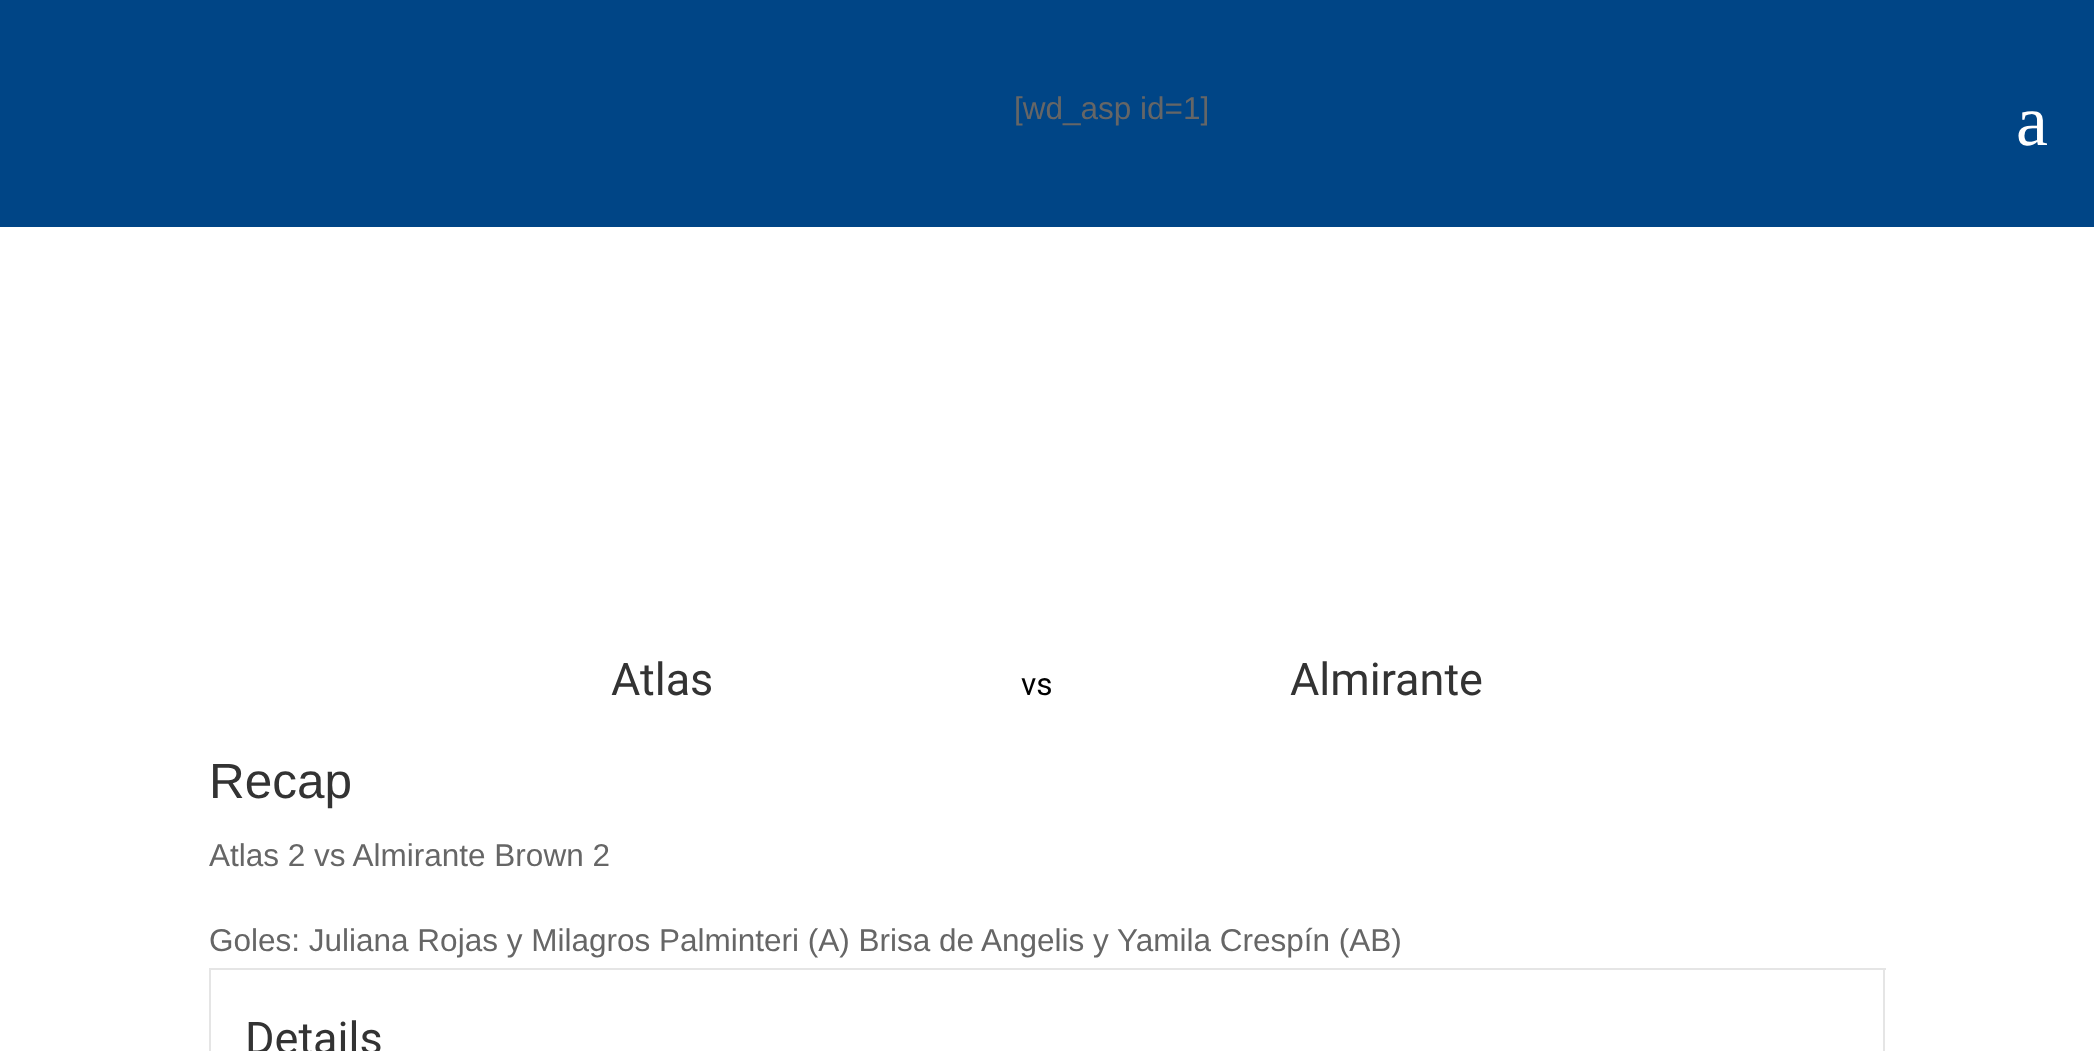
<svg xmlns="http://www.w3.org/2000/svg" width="2094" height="1051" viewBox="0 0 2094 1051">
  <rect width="100%" height="100%" fill="rgb(255,255,255)"/>
  <rect x="0" y="0" width="2094" height="227" fill="rgb(0,69,134)"/>
  <text x="1014" y="119" font-family="Liberation Sans" font-size="31.5" fill="rgb(102,102,102)">[wd_asp id=1]</text>
  <text x="2016" y="145" font-family="Liberation Serif" font-size="72" fill="rgb(255,255,255)">a</text>
  <text x="611" y="695" font-family="Roboto" font-size="45" fill="rgb(51,51,51)">Atlas</text>
  <text x="1021" y="695" font-family="Roboto" font-size="31.5" fill="rgb(0,0,0)">vs</text>
  <text x="1290" y="695" font-family="Roboto" font-size="45" fill="rgb(51,51,51)">Almirante</text>
  <text x="209" y="798" font-family="Liberation Sans" font-size="49.5" fill="rgb(51,51,51)">Recap</text>
  <g font-family="Liberation Sans" font-size="31.5" fill="rgb(102,102,102)">
    <text x="209" y="866">Atlas 2 vs Almirante Brown 2</text>
    <text x="209" y="951">Goles: Juliana Rojas y Milagros Palminteri (A) Brisa de Angelis y Yamila Crespín (AB)</text>
  </g>
  <rect x="209" y="968" width="1677" height="2" fill="rgb(229,229,229)"/>
  <rect x="1883" y="968" width="2" height="83" fill="rgb(229,229,229)"/>
  <rect x="209" y="968" width="2" height="83" fill="rgb(229,229,229)"/>
  <text x="245" y="1054" font-family="Roboto" font-size="45" fill="rgb(51,51,51)">Details</text>
</svg>
